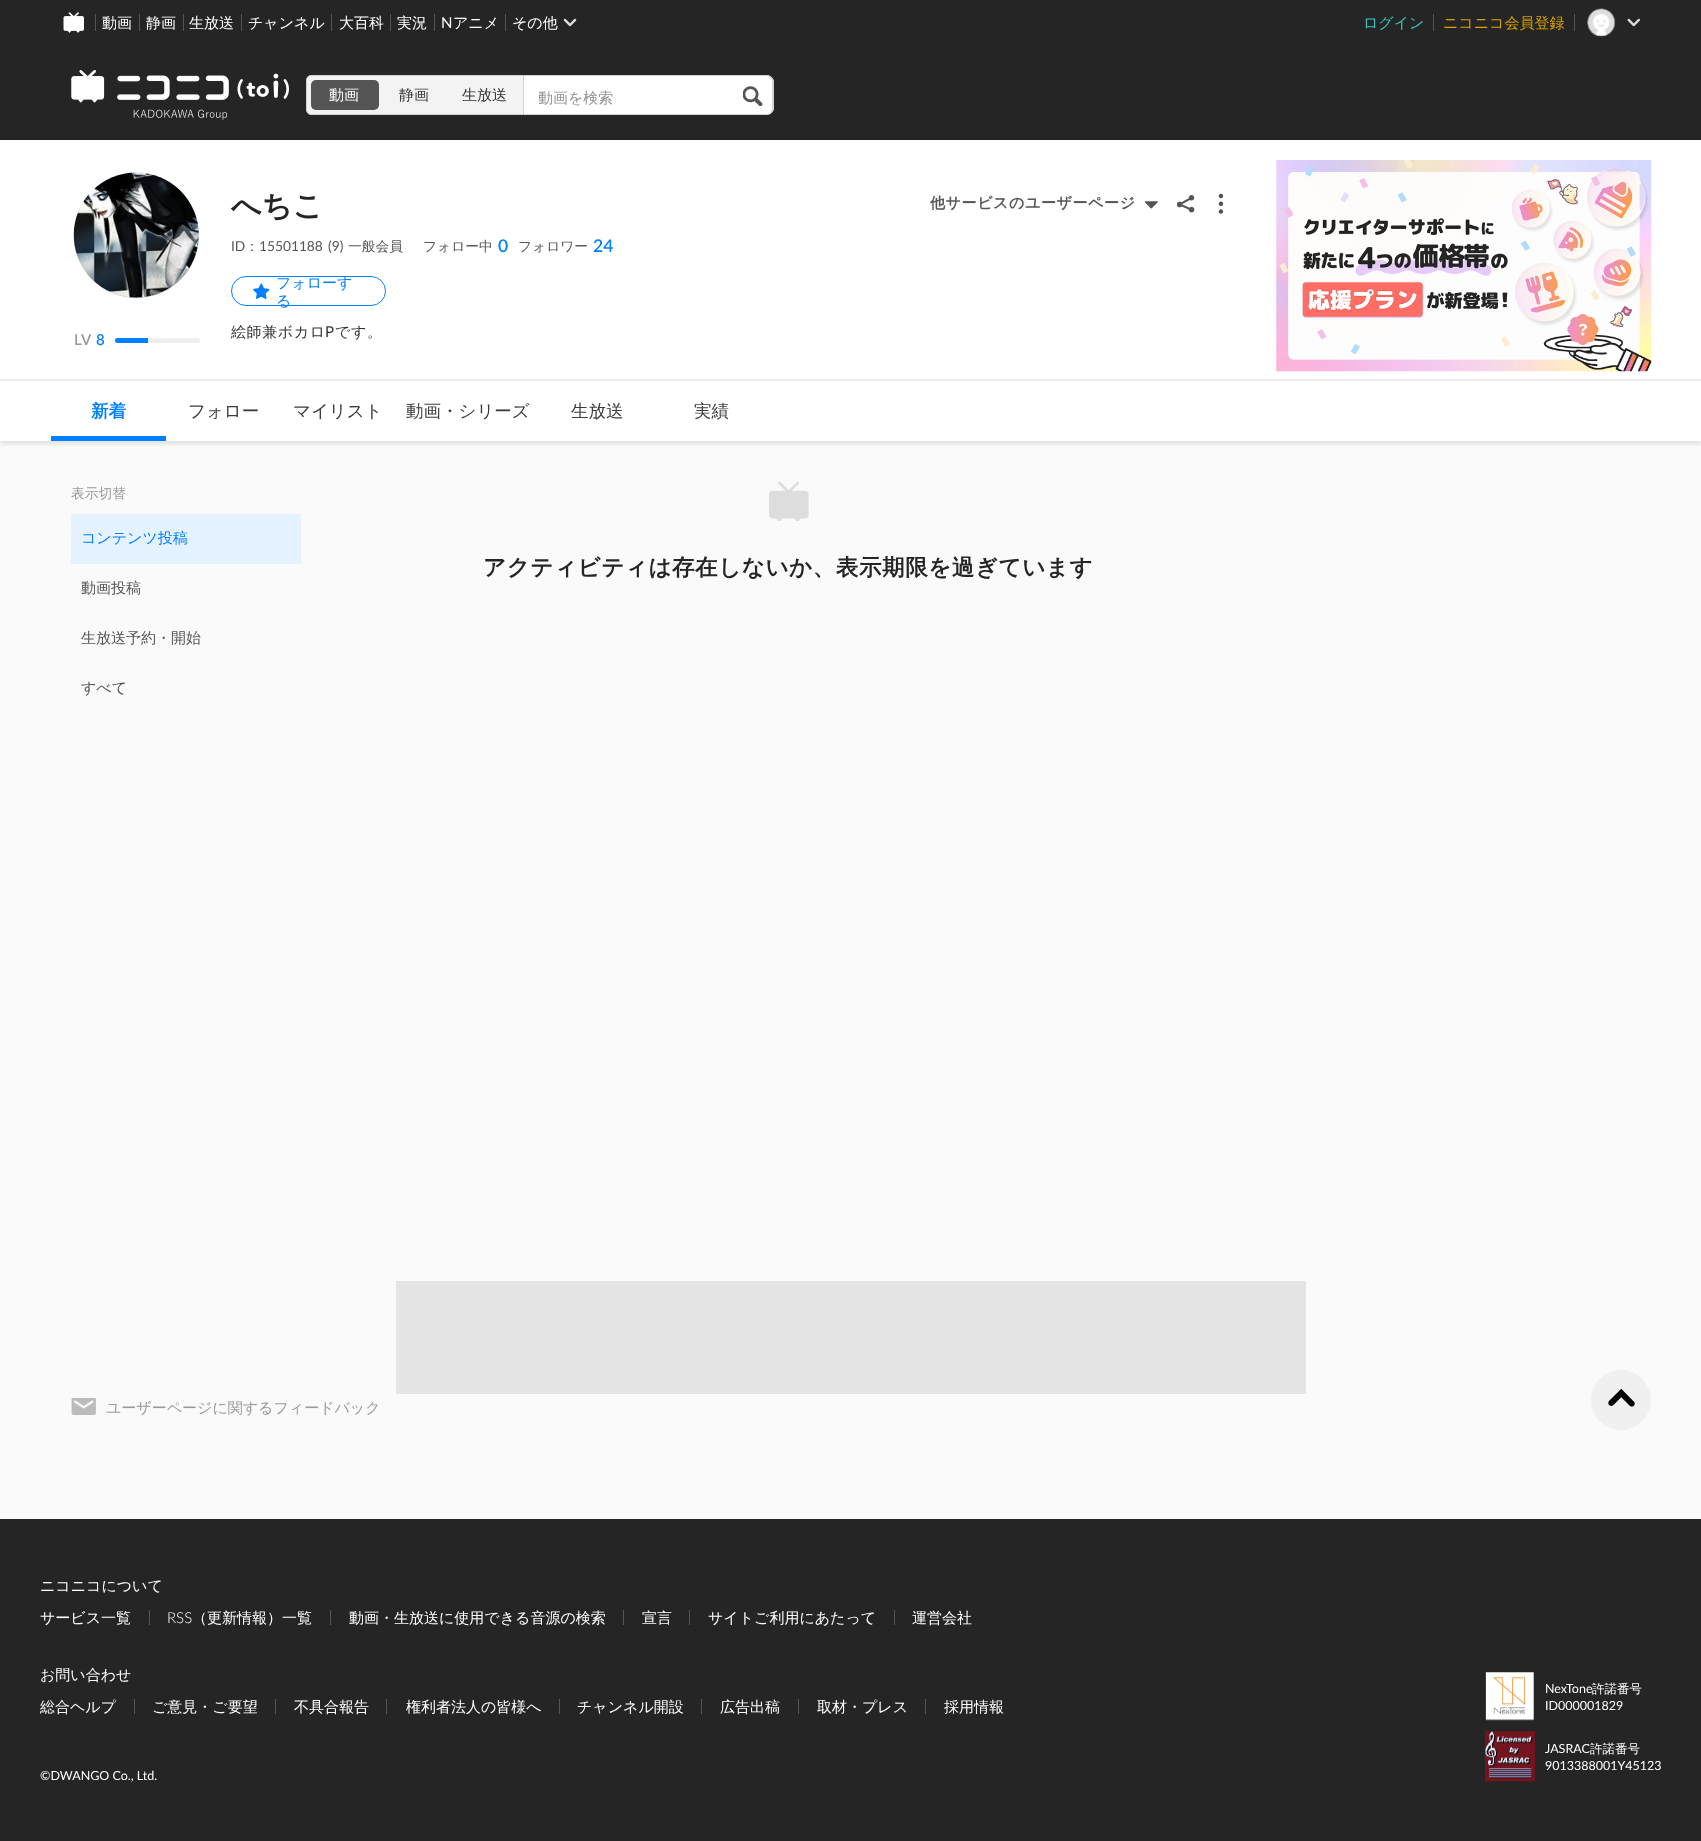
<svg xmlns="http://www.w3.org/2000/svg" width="1701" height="1841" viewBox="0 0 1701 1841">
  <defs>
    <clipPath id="clip1"><rect x="539" y="88" width="185" height="21"/></clipPath>
    <clipPath id="clip2"><rect x="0" y="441" width="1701" height="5"/></clipPath>
  </defs>
  <rect width="100%" height="100%" fill="rgb(250,250,250)"/>
  <rect x="0" y="0" width="1701" height="140" fill="rgb(37,37,37)"/>
  <image x="63" y="12" width="21" height="21" href="pic1.png"/>
  <rect x="95" y="14" width="1" height="17" fill="rgb(85,85,85)"/>
  <text x="102" y="28" font-family="WenQuanYi Zen Hei" font-size="15" font-weight="500" fill="rgb(255,255,255)">動画</text>
  <rect x="139" y="14" width="1" height="17" fill="rgb(85,85,85)"/>
  <text x="146" y="28" font-family="WenQuanYi Zen Hei" font-size="15" font-weight="500" fill="rgb(255,255,255)">静画</text>
  <rect x="183" y="14" width="1" height="17" fill="rgb(85,85,85)"/>
  <text x="189" y="28" font-family="WenQuanYi Zen Hei" font-size="15" font-weight="500" fill="rgb(255,255,255)">生放送</text>
  <rect x="241" y="14" width="1" height="17" fill="rgb(85,85,85)"/>
  <text x="248" y="28" font-family="WenQuanYi Zen Hei" font-size="15" font-weight="500" fill="rgb(255,255,255)">チャンネル</text>
  <rect x="331" y="14" width="1" height="17" fill="rgb(85,85,85)"/>
  <text x="339" y="28" font-family="WenQuanYi Zen Hei" font-size="15" font-weight="500" fill="rgb(255,255,255)">大百科</text>
  <rect x="390" y="14" width="1" height="17" fill="rgb(85,85,85)"/>
  <text x="397" y="28" font-family="WenQuanYi Zen Hei" font-size="15" font-weight="500" fill="rgb(255,255,255)">実況</text>
  <rect x="434" y="14" width="1" height="17" fill="rgb(85,85,85)"/>
  <text x="441" y="28" font-family="Lato" font-size="15" fill="rgb(255,255,255)">N</text>
  <text x="453" y="28" font-family="WenQuanYi Zen Hei" font-size="15" font-weight="500" fill="rgb(255,255,255)">アニメ</text>
  <rect x="505" y="14" width="1" height="17" fill="rgb(85,85,85)"/>
  <text x="512" y="28" font-family="WenQuanYi Zen Hei" font-size="15" font-weight="500" fill="rgb(255,255,255)">その他</text>
  <image x="563" y="18" width="14" height="9" href="pic2.png"/>
  <text x="1363" y="28" font-family="WenQuanYi Zen Hei" font-size="15" font-weight="500" fill="rgb(57,196,193)">ログイン</text>
  <rect x="1433" y="14" width="1" height="17" fill="rgb(85,85,85)"/>
  <text x="1443" y="28" font-family="WenQuanYi Zen Hei" font-size="15" font-weight="500" fill="rgb(217,163,0)">ニコニコ会員登録</text>
  <rect x="1574" y="14" width="1" height="17" fill="rgb(85,85,85)"/>
  <image x="1587" y="8" width="29" height="29" href="pic3.png"/>
  <image x="1627" y="18" width="13" height="9" href="pic4.png"/>
  <image x="71" y="70" width="218" height="50" href="pic5.png"/>
  <path d="M311 75.5H523.5V114.5H311C308.5 114.5 306.5 112.5 306.5 110V80C306.5 77.5 308.5 75.5 311 75.5Z" fill="rgb(243,243,243)" stroke="rgb(211,211,211)"/>
  <rect x="311" y="80" width="68" height="30" rx="5" fill="rgb(85,85,85)"/>
  <text x="329" y="100" font-family="WenQuanYi Zen Hei" font-size="15" font-weight="500" fill="rgb(255,255,255)">動画</text>
  <g font-family="WenQuanYi Zen Hei" font-size="15" font-weight="500" fill="rgb(51,51,51)">
    <text x="399" y="100">静画</text>
    <text x="462" y="100">生放送</text>
  </g>
  <path d="M524 75H766C770.5 75 774 78.5 774 83V107C774 111.5 770.5 115 766 115H524Z" fill="rgb(255,255,255)"/>
  <path d="M524 75H766C770 75 774 78 774 82V108C774 112 770 115 766 115H524ZM524 76H766C770 76 772 79 772 82V108C772 111 770 114 766 114H524Z" fill="rgb(211,211,211)" fill-rule="evenodd"/>
  <g clip-path="url(#clip1)">
    <text x="538" y="103" font-family="WenQuanYi Zen Hei" font-size="15" font-weight="500" fill="rgb(146,146,146)">動画を検索</text>
  </g>
  <image x="743" y="86" width="20" height="20" href="pic6.png"/>
  <rect x="0" y="140" width="1701" height="239" fill="rgb(255,255,255)"/>
  <circle cx="136.5" cy="235.5" r="62.5" fill="rgb(204,204,204)"/>
  <image x="73" y="172" width="126" height="126" href="pic7.png"/>
  <text x="74" y="345" font-family="Lato" font-size="15" font-weight="600" letter-spacing="0.6" fill="rgb(153,153,153)">LV</text>
  <text x="96" y="345" font-family="Lato" font-size="15" font-weight="600" letter-spacing="0.6" fill="rgb(0,128,255)">8</text>
  <rect x="115" y="338" width="85" height="5" rx="2.5" fill="rgb(238,238,238)"/>
  <path d="M117.5 338H148V343H117.5C116 343 115 342 115 340.5C115 339 116 338 117.5 338Z" fill="rgb(0,128,255)"/>
  <text x="231" y="216" font-family="WenQuanYi Zen Hei" font-size="30" font-weight="bold" fill="rgb(37,37,37)">へちこ</text>
  <text x="930" y="208" font-family="WenQuanYi Zen Hei" font-size="15" font-weight="bold" letter-spacing="0.6" fill="rgb(85,85,85)">他サービスのユーザーページ</text>
  <image x="1144" y="201" width="14" height="8" href="pic8.png"/>
  <image x="1176" y="195" width="19" height="18" href="pic9.png"/>
  <image x="1218" y="193" width="6" height="21" href="pic10.png"/>
  <text x="231" y="251" font-family="Lato" font-size="13.75" fill="rgb(85,85,85)">ID</text>
  <text x="245" y="251" font-family="WenQuanYi Zen Hei" font-size="13.75" font-weight="500" fill="rgb(85,85,85)">：</text>
  <g font-family="Lato" font-size="13.75" fill="rgb(85,85,85)">
    <text x="259" y="251">15501188</text>
    <text x="328" y="251">(9)</text>
  </g>
  <g font-family="WenQuanYi Zen Hei" font-size="13.75" font-weight="500" fill="rgb(85,85,85)">
    <text x="348" y="251">一般会員</text>
    <text x="423" y="251">フォロー中</text>
  </g>
  <text x="498" y="252" font-family="Lato" font-size="17.5" font-weight="600" fill="rgb(0,128,255)">0</text>
  <text x="518" y="251" font-family="WenQuanYi Zen Hei" font-size="13.75" font-weight="500" fill="rgb(85,85,85)">フォロワー</text>
  <text x="593" y="252" font-family="Lato" font-size="17.5" font-weight="600" fill="rgb(0,128,255)">24</text>
  <rect x="231.5" y="276.5" width="154" height="29" rx="14.5" fill="none" stroke="rgb(0,128,255)"/>
  <image x="253" y="283" width="17" height="16" href="pic11.png"/>
  <g font-family="WenQuanYi Zen Hei" font-size="15" font-weight="500" fill="rgb(0,128,255)">
    <text>
      <tspan x="276" y="288">フォローす</tspan>
      <tspan x="276" y="306">る</tspan>
    </text>
  </g>
  <text x="231" y="337" font-family="WenQuanYi Zen Hei" font-size="15" font-weight="500" letter-spacing="0.6" fill="rgb(51,51,51)">絵師兼ボカロ</text>
  <text x="325" y="337" font-family="Lato" font-size="15" letter-spacing="0.6" fill="rgb(51,51,51)">P</text>
  <text x="335" y="337" font-family="WenQuanYi Zen Hei" font-size="15" font-weight="500" letter-spacing="0.6" fill="rgb(51,51,51)">です。</text>
  <rect x="0" y="379" width="1701" height="2" fill="rgb(238,238,238)"/>
  <image x="1276" y="160" width="376" height="212" href="pic12.png"/>
  <rect x="0" y="381" width="1701" height="60" fill="rgb(255,255,255)"/>
  <g clip-path="url(#clip2)">
    <rect x="0" y="384" width="1701" height="60" fill="rgba(0,0,0,0.1)" filter="blur(2.5px)"/>
  </g>
  <text x="91" y="417" font-family="WenQuanYi Zen Hei" font-size="17.5" font-weight="bold" fill="rgb(0,128,255)">新着</text>
  <g font-family="WenQuanYi Zen Hei" font-size="17.5" font-weight="500" fill="rgb(59,59,59)">
    <text x="188" y="417">フォロー</text>
    <text x="293" y="417">マイリスト</text>
    <text x="406" y="417">動画・シリーズ</text>
    <text x="571" y="417">生放送</text>
    <text x="694" y="417">実績</text>
  </g>
  <rect x="51" y="436" width="115" height="5" fill="rgb(0,128,255)"/>
  <text x="71" y="498" font-family="WenQuanYi Zen Hei" font-size="13.75" font-weight="500" fill="rgb(153,153,153)">表示切替</text>
  <rect x="71" y="514" width="230" height="50" fill="rgb(229,242,255)"/>
  <text x="81" y="543" font-family="WenQuanYi Zen Hei" font-size="15" font-weight="500" fill="rgb(0,128,255)">コンテンツ投稿</text>
  <g font-family="WenQuanYi Zen Hei" font-size="15" font-weight="500" fill="rgb(85,85,85)">
    <text x="81" y="593">動画投稿</text>
    <text x="81" y="643">生放送予約・開始</text>
    <text x="81" y="693">すべて</text>
  </g>
  <image x="769" y="481" width="40" height="40" href="pic13.png"/>
  <text x="483" y="575" font-family="WenQuanYi Zen Hei" font-size="22.5" font-weight="bold" letter-spacing="0.6" fill="rgb(37,37,37)">アクティビティは存在しないか、表示期限を過ぎています</text>
  <rect x="396" y="1281" width="910" height="113" fill="rgb(229,229,229)"/>
  <image x="71" y="1398" width="25" height="17" href="pic14.png"/>
  <text x="106" y="1413" font-family="WenQuanYi Zen Hei" font-size="15" font-weight="500" fill="rgb(153,153,153)">ユーザーページに関するフィードバック</text>
  <circle cx="1621" cy="1400" r="30" fill="rgb(240,240,240)"/>
  <image x="1608" y="1388" width="27" height="19" href="pic15.png"/>
  <rect x="0" y="1519" width="1701" height="322" fill="rgb(37,37,37)"/>
  <g font-family="WenQuanYi Zen Hei" font-size="15" font-weight="500" fill="rgb(255,255,255)">
    <text x="40" y="1591">ニコニコについて</text>
    <text x="40" y="1623">サービス一覧</text>
  </g>
  <rect x="149" y="1610" width="1" height="15" fill="rgb(85,85,85)"/>
  <text x="167" y="1623" font-family="Lato" font-size="15" font-weight="300" fill="rgb(255,255,255)">RSS</text>
  <text x="192" y="1623" font-family="WenQuanYi Zen Hei" font-size="15" font-weight="500" fill="rgb(255,255,255)">（更新情報）一覧</text>
  <rect x="330" y="1610" width="1" height="15" fill="rgb(85,85,85)"/>
  <text x="349" y="1623" font-family="WenQuanYi Zen Hei" font-size="15" font-weight="500" fill="rgb(255,255,255)">動画・生放送に使用できる音源の検索</text>
  <rect x="623" y="1610" width="1" height="15" fill="rgb(85,85,85)"/>
  <text x="642" y="1623" font-family="WenQuanYi Zen Hei" font-size="15" font-weight="500" fill="rgb(255,255,255)">宣言</text>
  <rect x="689" y="1610" width="1" height="15" fill="rgb(85,85,85)"/>
  <text x="708" y="1623" font-family="WenQuanYi Zen Hei" font-size="15" font-weight="500" fill="rgb(255,255,255)">サイトご利用にあたって</text>
  <rect x="894" y="1610" width="1" height="15" fill="rgb(85,85,85)"/>
  <g font-family="WenQuanYi Zen Hei" font-size="15" font-weight="500" fill="rgb(255,255,255)">
    <text x="912" y="1623">運営会社</text>
    <text x="40" y="1680">お問い合わせ</text>
    <text x="40" y="1712">総合ヘルプ</text>
  </g>
  <rect x="134" y="1699" width="1" height="15" fill="rgb(85,85,85)"/>
  <text x="152" y="1712" font-family="WenQuanYi Zen Hei" font-size="15" font-weight="500" fill="rgb(255,255,255)">ご意見・ご要望</text>
  <rect x="275" y="1699" width="1" height="15" fill="rgb(85,85,85)"/>
  <text x="294" y="1712" font-family="WenQuanYi Zen Hei" font-size="15" font-weight="500" fill="rgb(255,255,255)">不具合報告</text>
  <rect x="386" y="1699" width="1" height="15" fill="rgb(85,85,85)"/>
  <text x="406" y="1712" font-family="WenQuanYi Zen Hei" font-size="15" font-weight="500" fill="rgb(255,255,255)">権利者法人の皆様へ</text>
  <rect x="559" y="1699" width="1" height="15" fill="rgb(85,85,85)"/>
  <text x="577" y="1712" font-family="WenQuanYi Zen Hei" font-size="15" font-weight="500" fill="rgb(255,255,255)">チャンネル開設</text>
  <rect x="701" y="1699" width="1" height="15" fill="rgb(85,85,85)"/>
  <text x="720" y="1712" font-family="WenQuanYi Zen Hei" font-size="15" font-weight="500" fill="rgb(255,255,255)">広告出稿</text>
  <rect x="798" y="1699" width="1" height="15" fill="rgb(85,85,85)"/>
  <text x="817" y="1712" font-family="WenQuanYi Zen Hei" font-size="15" font-weight="500" fill="rgb(255,255,255)">取材・プレス</text>
  <rect x="925" y="1699" width="1" height="15" fill="rgb(85,85,85)"/>
  <text x="944" y="1712" font-family="WenQuanYi Zen Hei" font-size="15" font-weight="500" fill="rgb(255,255,255)">採用情報</text>
  <image x="1485" y="1672" width="49" height="49" href="pic16.png"/>
  <text x="1545" y="1693" font-family="Lato" font-size="12.5" fill="rgb(255,255,255)">NexTone</text>
  <text x="1592" y="1693" font-family="WenQuanYi Zen Hei" font-size="12.5" font-weight="500" fill="rgb(255,255,255)">許諾番号</text>
  <text x="1545" y="1710" font-family="Lato" font-size="12.5" fill="rgb(255,255,255)">ID000001829</text>
  <image x="1485" y="1731" width="50" height="51" href="pic17.png"/>
  <text x="1545" y="1753" font-family="Lato" font-size="12.5" fill="rgb(255,255,255)">JASRAC</text>
  <text x="1590" y="1753" font-family="WenQuanYi Zen Hei" font-size="12.5" font-weight="500" fill="rgb(255,255,255)">許諾番号</text>
  <g font-family="Lato" font-size="12.5" fill="rgb(255,255,255)">
    <text x="1545" y="1770">9013388001Y45123</text>
    <text x="40" y="1780">©DWANGO Co., Ltd.</text>
  </g>
</svg>
